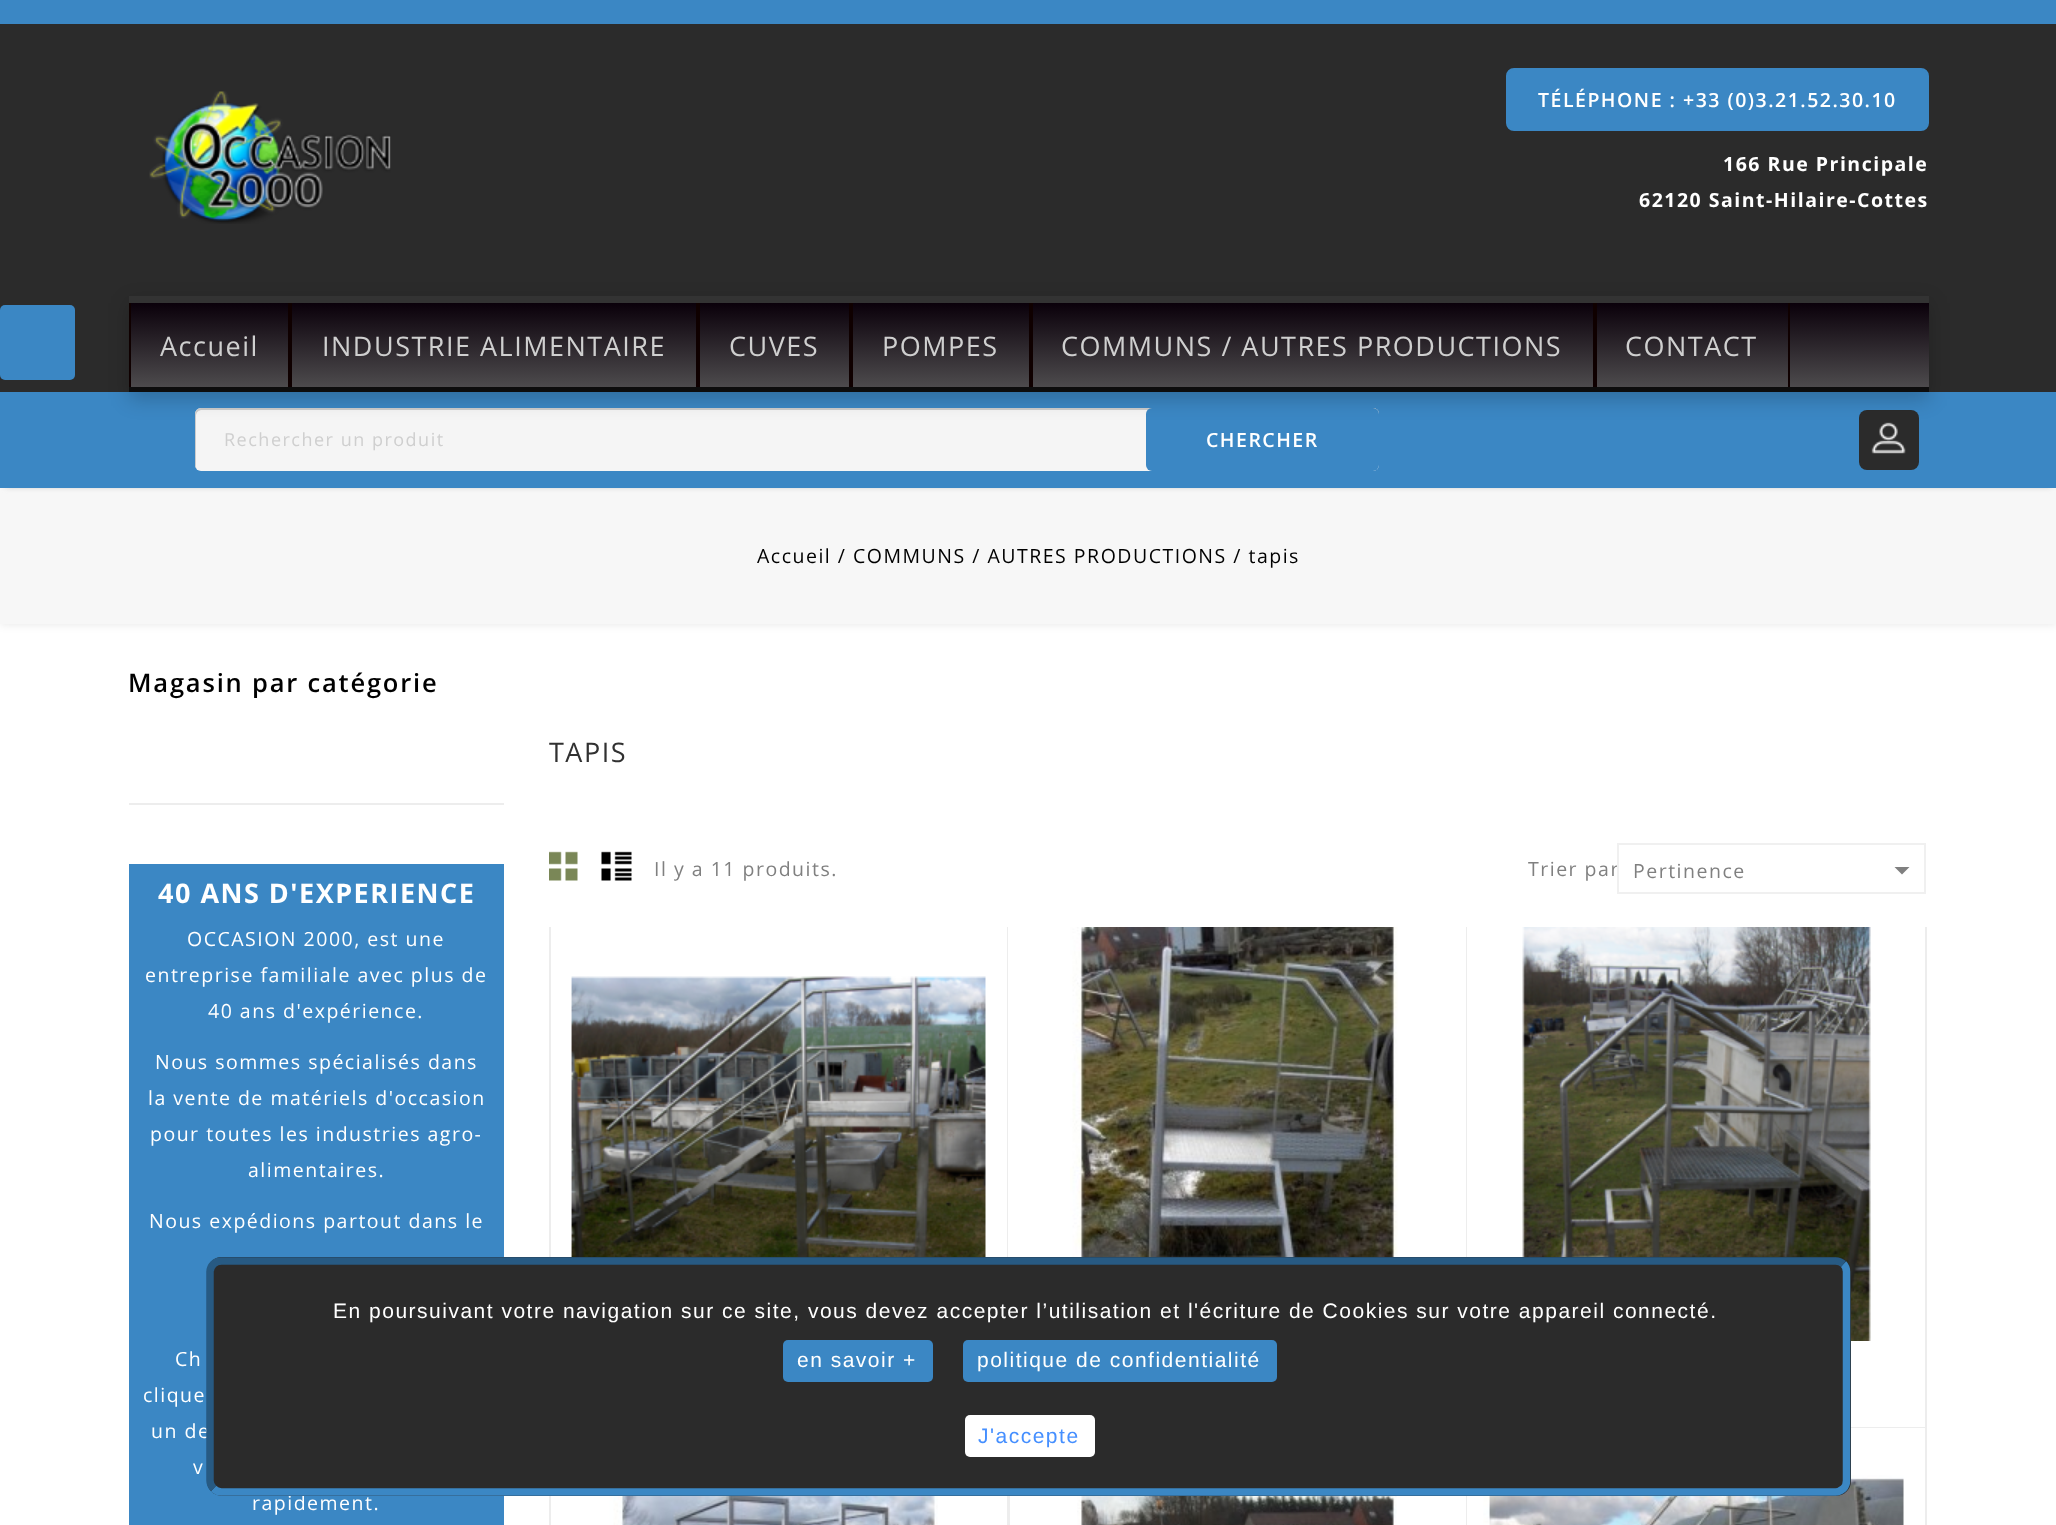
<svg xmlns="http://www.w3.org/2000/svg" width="2056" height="1525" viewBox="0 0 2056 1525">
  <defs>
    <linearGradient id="g1" gradientUnits="userSpaceOnUse" x1="129" y1="303" x2="129" y2="387"><stop offset="0" stop-color="rgb(10,0,10)"/><stop offset="1" stop-color="rgb(77,75,77)"/></linearGradient>
  </defs>
  <rect width="100%" height="100%" fill="rgb(255,255,255)"/>
  <rect x="0" y="24" width="2056" height="368" fill="rgb(43,43,43)"/>
  <rect x="0" y="305" width="75" height="75" rx="5" fill="rgb(59,135,196)"/>
  <rect x="0" y="0" width="2056" height="24" fill="rgb(59,135,196)"/>
  <image x="149" y="91" width="242" height="133" href="pic1.png"/>
  <rect x="1507" y="69" width="421" height="61" rx="7" fill="rgb(59,135,196)" stroke="rgb(59,135,196)" stroke-width="2"/>
  <text x="1538" y="107" font-family="Open Sans" font-size="19.5" font-weight="600" letter-spacing="1.5" fill="rgb(255,255,255)">TÉLÉPHONE : +33 (0)3.21.52.30.10</text>
  <g font-family="Open Sans" font-size="19.5" font-weight="bold" letter-spacing="1.5" fill="rgb(255,255,255)">
    <text x="1723" y="171">166 Rue Principale</text>
    <text x="1639" y="207">62120 Saint-Hilaire-Cottes</text>
  </g>
  <rect x="0" y="488" width="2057" height="136" fill="rgba(0,0,0,0.1)" filter="blur(5px)"/>
  <rect x="0" y="488" width="2056" height="136" fill="rgb(247,247,247)"/>
  <rect x="6" y="402" width="2045" height="84" fill="rgb(177,177,177)" filter="blur(3px)"/>
  <rect x="0" y="392" width="2056" height="96" fill="rgb(59,135,196)"/>
  <rect x="195" y="408" width="1184" height="63" rx="6" fill="rgb(245,245,245)"/>
  <path d="M202 410H1374C1376 410 1378 411 1379 412C1378 410 1376 408 1373 408H201C198 408 195 411 195 414V465C195 467 196 468 197 469C196 469 196 467 196 466V416C196 412 199 410 202 410Z" fill="rgb(204,204,204)"/>
  <rect x="1146" y="408" width="233" height="63" rx="6" fill="rgb(59,135,196)"/>
  <rect x="1859" y="410" width="60" height="60" rx="8" fill="rgb(43,43,43)"/>
  <image x="1871" y="422" width="35" height="32" href="pic2.png"/>
  <rect x="129" y="303" width="1800" height="96" fill="rgba(0,0,0,0.2)" filter="blur(10px)"/>
  <rect x="129" y="296" width="1800" height="7" fill="rgb(51,51,51)"/>
  <rect x="131" y="303" width="1798" height="84" fill="url(#g1)"/>
  <rect x="129" y="387" width="1800" height="5" fill="rgb(13,13,13)"/>
  <rect x="288" y="303" width="4" height="84" fill="rgb(15,0,0)"/>
  <rect x="129" y="303" width="2" height="84" fill="rgb(15,0,0)"/>
  <text x="160" y="356" font-family="Open Sans" font-size="27" letter-spacing="1.5" fill="rgb(207,207,207)">Accueil</text>
  <rect x="696" y="303" width="4" height="84" fill="rgb(15,0,0)"/>
  <text x="322" y="356" font-family="Open Sans" font-size="27" letter-spacing="1.5" fill="rgb(207,207,207)">INDUSTRIE ALIMENTAIRE</text>
  <rect x="849" y="303" width="4" height="84" fill="rgb(15,0,0)"/>
  <text x="729" y="356" font-family="Open Sans" font-size="27" letter-spacing="1.5" fill="rgb(207,207,207)">CUVES</text>
  <rect x="1029" y="303" width="4" height="84" fill="rgb(15,0,0)"/>
  <text x="882" y="356" font-family="Open Sans" font-size="27" letter-spacing="1.5" fill="rgb(207,207,207)">POMPES</text>
  <rect x="1593" y="303" width="4" height="84" fill="rgb(15,0,0)"/>
  <text x="1061" y="356" font-family="Open Sans" font-size="27" letter-spacing="1.5" fill="rgb(207,207,207)">COMMUNS / AUTRES PRODUCTIONS</text>
  <rect x="1788" y="303" width="2" height="84" fill="rgb(15,0,0)"/>
  <text x="1625" y="356" font-family="Open Sans" font-size="27" letter-spacing="1.5" fill="rgb(207,207,207)">CONTACT</text>
  <text x="224" y="446" font-family="Open Sans" font-size="18" letter-spacing="1.5" fill="rgb(207,207,207)">Rechercher un produit</text>
  <text x="1206" y="447" font-family="Open Sans" font-size="19.5" font-weight="600" letter-spacing="1.5" fill="rgb(255,255,255)">CHERCHER</text>
  <text x="757" y="563" font-family="Open Sans" font-size="19.5" letter-spacing="1.5" fill="rgb(0,0,0)">Accueil / COMMUNS / AUTRES PRODUCTIONS / tapis</text>
  <rect x="129" y="803" width="375" height="2" fill="rgb(237,237,237)"/>
  <text x="128" y="692" font-family="Open Sans" font-size="25.5" font-weight="600" letter-spacing="1.8" fill="rgb(0,0,0)">Magasin par catégorie</text>
  <rect x="129" y="864" width="375" height="661" fill="rgb(59,135,196)"/>
  <text x="158" y="903" font-family="Open Sans" font-size="27" font-weight="bold" letter-spacing="1.5" fill="rgb(255,255,255)">40 ANS D'EXPERIENCE</text>
  <g font-family="Open Sans" font-size="19.5" letter-spacing="1.5" fill="rgb(255,255,255)">
    <text x="187" y="946">OCCASION 2000, est une</text>
    <text x="145" y="982">entreprise familiale avec plus de</text>
    <text x="208" y="1018">40 ans d'expérience.</text>
    <text x="155" y="1069">Nous sommes spécialisés dans</text>
    <text x="148" y="1105">la vente de matériels d'occasion</text>
    <text x="150" y="1141">pour toutes les industries agro-</text>
    <text x="248" y="1177">alimentaires.</text>
    <text x="149" y="1228">Nous expédions partout dans le</text>
    <text x="175" y="1366">Ch</text>
    <text x="143" y="1402">clique</text>
    <text x="151" y="1438">un de</text>
    <text x="193" y="1474">v</text>
    <text x="252" y="1510">rapidement.</text>
  </g>
  <text x="549" y="762" font-family="Open Sans" font-size="27" letter-spacing="1.5" fill="rgb(49,49,49)">TAPIS</text>
  <image x="549" y="851" width="29" height="30" href="pic3.png"/>
  <image x="601" y="851" width="31" height="30" href="pic4.png"/>
  <g font-family="Open Sans" font-size="19.5" letter-spacing="1.5" fill="rgb(128,128,128)">
    <text x="654" y="876">Il y a 11 produits.</text>
    <text x="1528" y="876">Trier par</text>
  </g>
  <rect x="1618" y="844" width="307" height="49" fill="none" stroke="rgb(240,240,240)" stroke-width="2"/>
  <text x="1633" y="878" font-family="Open Sans" font-size="19.5" letter-spacing="1.5" fill="rgb(128,128,128)">Pertinence</text>
  <path d="M1894.5 867H1909.5L1902 874.5Z" fill="rgb(128,128,128)"/>
  <rect x="1007" y="927" width="1" height="330" fill="rgb(237,237,237)"/>
  <rect x="549" y="927" width="2" height="330" fill="rgb(237,237,237)"/>
  <image x="571" y="976" width="415" height="281" href="pic5.png"/>
  <rect x="1466" y="927" width="1" height="330" fill="rgb(237,237,237)"/>
  <image x="1070" y="927" width="328" height="330" href="pic6.png"/>
  <rect x="1925" y="927" width="2" height="500" fill="rgb(237,237,237)"/>
  <image x="1522" y="927" width="349" height="414" href="pic7.png"/>
  <rect x="1007" y="1496" width="3" height="29" fill="rgb(237,237,237)"/>
  <rect x="549" y="1496" width="2" height="29" fill="rgb(237,237,237)"/>
  <image x="609" y="1496" width="329" height="29" href="pic8.png"/>
  <rect x="1466" y="1496" width="1" height="29" fill="rgb(237,237,237)"/>
  <image x="1077" y="1496" width="320" height="29" href="pic9.png"/>
  <rect x="1851" y="1427" width="75" height="1" fill="rgb(237,237,237)"/>
  <rect x="1925" y="1427" width="2" height="98" fill="rgb(237,237,237)"/>
  <image x="1483" y="1475" width="421" height="50" href="pic10.png"/>
  <rect x="207" y="1257" width="1644" height="239" rx="15" fill="rgb(43,43,43)"/>
  <path d="M1843.5 1264C1845.5 1266 1846.5 1269 1846.5 1272V1480.5C1846.5 1483.5 1845.5 1486.5 1843.5 1488.5C1841 1490.5 1838.5 1492 1835.5 1492H221.5C218.5 1492 215.5 1490.5 213.5 1488.5" fill="none" stroke="rgb(59,135,196)" stroke-width="7.5"/>
  <path d="M213.5 1488.5C211.5 1486.5 210 1483.5 210 1480.5V1272C210 1269 211.5 1266 213.5 1264C215.5 1262 218.5 1261 221.5 1261H1835.5C1838.5 1261 1841 1262 1843.5 1264" fill="none" stroke="rgb(39,90,131)" stroke-width="7.5"/>
  <text x="333" y="1318" font-family="Liberation Sans" font-size="21" letter-spacing="1.5" fill="rgb(255,255,255)">En poursuivant votre navigation sur ce site, vous devez accepter l’utilisation et l'écriture de Cookies sur votre appareil connecté.</text>
  <rect x="783" y="1340" width="150" height="42" rx="5" fill="rgb(59,135,196)"/>
  <text x="797" y="1367" font-family="Liberation Sans" font-size="21" letter-spacing="1.5" fill="rgb(255,255,255)">en savoir +</text>
  <rect x="963" y="1340" width="314" height="42" rx="5" fill="rgb(59,135,196)"/>
  <text x="977" y="1367" font-family="Liberation Sans" font-size="21" letter-spacing="1.5" fill="rgb(255,255,255)">politique de confidentialité</text>
  <rect x="965" y="1415" width="130" height="42" rx="5" fill="rgb(255,255,255)"/>
  <text x="978" y="1443" font-family="Liberation Sans" font-size="21" letter-spacing="1.5" fill="rgb(69,143,255)">J'accepte</text>
</svg>
